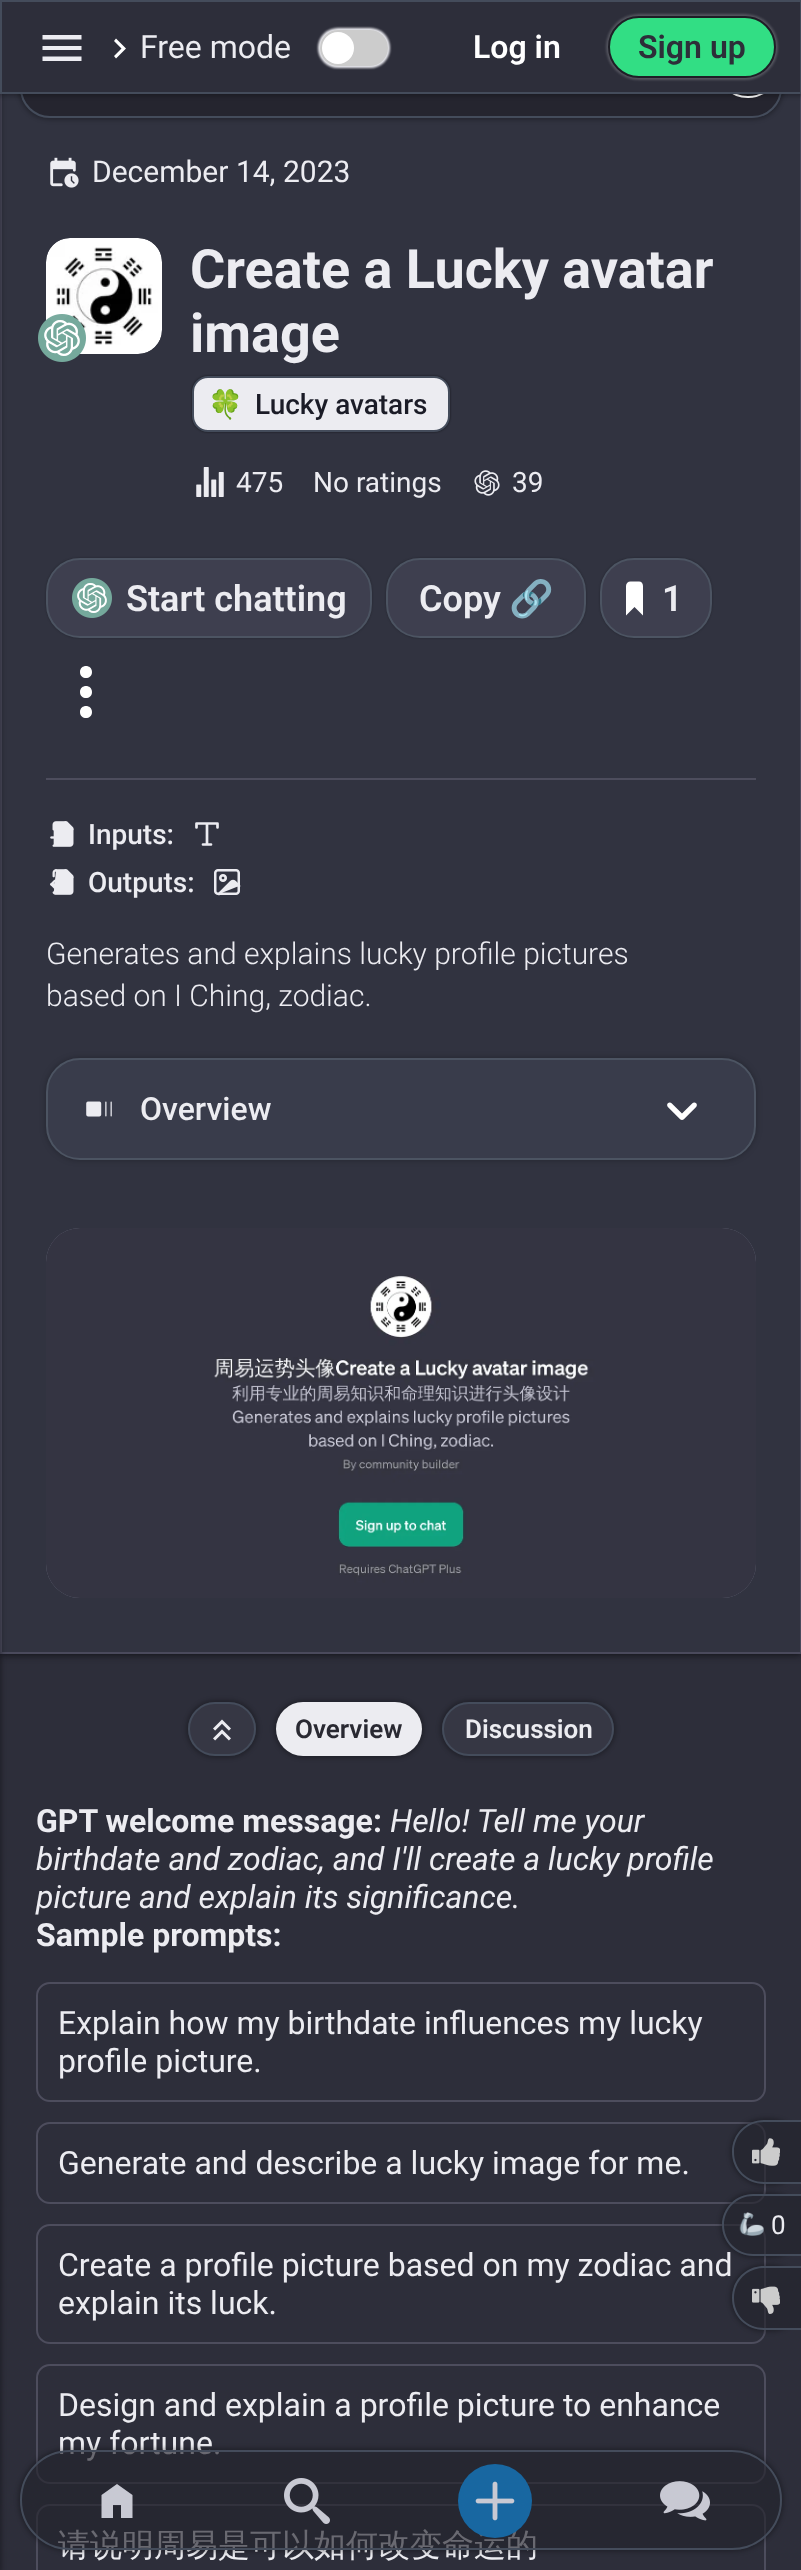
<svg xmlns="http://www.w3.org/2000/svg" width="801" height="2570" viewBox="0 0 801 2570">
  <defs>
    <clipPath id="clip1"><path d="M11 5H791V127H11ZM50 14H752C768.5 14 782 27.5 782 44V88C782 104.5 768.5 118 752 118H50C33.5 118 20 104.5 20 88V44C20 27.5 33.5 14 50 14Z" clip-rule="evenodd"/></clipPath>
    <linearGradient id="g1" gradientUnits="userSpaceOnUse" x1="93" y1="325" x2="86" y2="125"><stop offset="0" stop-color="rgb(255,255,255)" stop-opacity="0.03"/><stop offset="1" stop-color="rgb(255,255,255)" stop-opacity="0"/></linearGradient>
    <clipPath id="clip2"><path d="M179 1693H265V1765H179ZM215 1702H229C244 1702 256 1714 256 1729C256 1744 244 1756 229 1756H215C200 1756 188 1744 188 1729C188 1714 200 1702 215 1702Z" clip-rule="evenodd"/></clipPath>
    <clipPath id="clip3"><path d="M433 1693H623V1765H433ZM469 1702H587C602 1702 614 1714 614 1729C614 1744 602 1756 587 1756H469C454 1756 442 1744 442 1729C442 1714 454 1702 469 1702Z" clip-rule="evenodd"/></clipPath>
    <clipPath id="clip4"><path d="M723 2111H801V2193H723ZM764 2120H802V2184H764C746.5 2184 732 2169.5 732 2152C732 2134.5 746.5 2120 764 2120Z" clip-rule="evenodd"/></clipPath>
    <clipPath id="clip5"><path d="M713 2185H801V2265H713ZM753 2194H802V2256H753C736 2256 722 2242 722 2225C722 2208 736 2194 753 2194Z" clip-rule="evenodd"/></clipPath>
    <clipPath id="clip6"><path d="M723 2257H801V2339H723ZM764 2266H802V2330H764C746.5 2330 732 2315.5 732 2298C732 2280.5 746.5 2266 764 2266Z" clip-rule="evenodd"/></clipPath>
    <clipPath id="clip7"><path d="M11 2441H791V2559H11ZM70 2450H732C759.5 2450 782 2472.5 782 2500C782 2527.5 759.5 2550 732 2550H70C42.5 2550 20 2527.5 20 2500C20 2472.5 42.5 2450 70 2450Z" clip-rule="evenodd"/></clipPath>
  </defs>
  <rect width="100%" height="100%" fill="rgb(45,46,58)"/>
  <rect x="0" y="-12" width="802" height="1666" fill="rgb(10,10,16)" filter="blur(4px)"/>
  <rect x="2" y="94" width="798" height="1558" fill="rgb(49,51,64)"/>
  <rect x="1" y="-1" width="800" height="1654" fill="none" stroke="rgb(74,74,92)" stroke-width="2"/>
  <g clip-path="url(#clip1)">
    <rect x="18" y="12" width="766" height="108" rx="32" fill="rgba(0,0,0,0.27)" filter="blur(2px)"/>
  </g>
  <rect x="21" y="15" width="760" height="102" rx="29" fill="rgba(36,36,45,0.87)" stroke="rgb(68,76,91)" stroke-width="2"/>
  <rect x="716" y="34" width="64" height="64" rx="32" fill="rgba(0,0,0,0.27)" filter="blur(1px)"/>
  <circle cx="748" cy="66" r="31" fill="none" stroke="rgb(255,255,255)" stroke-width="2"/>
  <rect x="-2" y="-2" width="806" height="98" fill="rgba(0,0,0,0.27)" filter="blur(2px)"/>
  <rect x="-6" y="74" width="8" height="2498" fill="rgba(0,0,0,0.27)" filter="blur(2px)"/>
  <rect x="1" y="1" width="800" height="92" fill="rgb(45,46,58)" stroke="rgb(68,76,91)" stroke-width="2"/>
  <path d="M42.5 61V56.5H81.5V61ZM42.5 50V46H81.5V50ZM42.5 39.5V35H81.5V39.5Z" fill="rgb(236,236,241)"/>
  <path d="M114 41L116 38.5L126 48.5L116 58.5L114 56L121.5 48.5Z" fill="rgb(255,255,255)"/>
  <text x="140" y="58" font-family="Roboto" font-size="32" fill="rgb(236,236,241)">Free mode</text>
  <rect x="318" y="28" width="72" height="40" rx="20" fill="rgb(236,236,241)" filter="blur(1px)"/>
  <rect x="320" y="30" width="68" height="36" rx="18" fill="rgb(204,204,204)"/>
  <circle cx="338" cy="48" r="16" fill="rgb(255,255,255)"/>
  <text x="473" y="58" font-family="Roboto" font-size="32" font-weight="600" fill="rgb(255,255,255)">Log in</text>
  <rect x="606" y="14" width="172" height="66" rx="33" fill="rgba(255,255,255,0.19)" filter="blur(1px)"/>
  <rect x="609" y="17" width="166" height="60" rx="30" fill="rgb(50,222,132)" stroke="rgb(30,30,38)" stroke-width="2"/>
  <text x="638" y="58" font-family="Roboto" font-size="32" font-weight="600" fill="rgb(45,46,57)">Sign up</text>
  <image x="50" y="157" width="29" height="31" href="pic1.png"/>
  <text x="92" y="182" font-family="Roboto" font-size="30" fill="rgb(236,236,241)">December 14, 2023</text>
  <image x="46" y="238" width="116" height="116" href="pic2.png"/>
  <image x="38" y="314" width="48" height="48" href="pic3.png"/>
  <path d="M70 238H140L58 326L46 315V262C46 249 57 238 70 238Z" fill="url(#g1)"/>
  <g font-family="Roboto" font-size="54" font-weight="bold" fill="rgb(236,236,241)">
    <text>
      <tspan x="190" y="288">Create a Lucky avatar</tspan>
      <tspan x="190" y="352">image</tspan>
    </text>
  </g>
  <rect x="192" y="376" width="258" height="56" rx="16" fill="rgba(0,0,0,0.55)" filter="blur(1px)"/>
  <rect x="193" y="377" width="256" height="54" rx="15" fill="rgb(236,236,241)" stroke="rgb(68,76,91)" stroke-width="2"/>
  <text x="208" y="414" font-family="Noto Color Emoji" font-size="28" fill="rgb(27,28,39)">🍀</text>
  <text x="255" y="414" font-family="Roboto" font-size="28" font-weight="500" fill="rgb(27,28,39)">Lucky avatars</text>
  <image x="196" y="467" width="28" height="30" href="pic4.png"/>
  <g font-family="Roboto" font-size="28" fill="rgb(236,236,241)">
    <text x="236" y="492">475</text>
    <text x="313" y="492">No ratings</text>
  </g>
  <image x="474" y="470" width="26" height="26" href="pic5.png"/>
  <text x="512" y="492" font-family="Roboto" font-size="28" fill="rgb(236,236,241)">39</text>
  <rect x="46" y="558" width="326" height="80" rx="34" fill="rgba(0,0,0,0.27)" filter="blur(1px)"/>
  <rect x="47" y="559" width="324" height="78" rx="33" fill="rgb(62,63,79)" stroke="rgb(76,84,98)" stroke-width="2"/>
  <image x="72" y="578" width="40" height="40" href="pic6.png"/>
  <text x="126" y="611" font-family="Roboto" font-size="36" font-weight="600" fill="rgb(236,236,241)">Start chatting</text>
  <rect x="386" y="558" width="200" height="80" rx="34" fill="rgba(0,0,0,0.27)" filter="blur(1px)"/>
  <rect x="387" y="559" width="198" height="78" rx="33" fill="rgb(62,63,79)" stroke="rgb(76,84,98)" stroke-width="2"/>
  <text x="419" y="611" font-family="Roboto" font-size="36" font-weight="600" fill="rgb(236,236,241)">Copy</text>
  <text x="509" y="611" font-family="Noto Color Emoji" font-size="36" font-weight="bold" fill="rgb(236,236,241)">🔗</text>
  <rect x="600" y="558" width="112" height="80" rx="34" fill="rgba(0,0,0,0.27)" filter="blur(1px)"/>
  <rect x="601" y="559" width="110" height="78" rx="33" fill="rgb(62,63,79)" stroke="rgb(76,84,98)" stroke-width="2"/>
  <path d="M630.5 581.5C628 581.5 626 583.5 626 586V615.5L634.5 607L643 615.5V586C643 583.5 641.5 581.5 639 581.5Z" fill="rgb(255,255,255)"/>
  <text x="662" y="611" font-family="Roboto" font-size="36" font-weight="600" fill="rgb(236,236,241)">1</text>
  <path d="M92 712C92 720 80 720 80 712C80 704 92 704 92 712M92 692C92 700 80 700 80 692C80 684 92 684 92 692M92 672C92 680 80 680 80 672C80 664 92 664 92 672" fill="rgb(255,255,255)"/>
  <rect x="46" y="778" width="710" height="2" fill="rgb(77,77,93)"/>
  <image x="50" y="821" width="24" height="26" href="pic7.png"/>
  <text x="88" y="844" font-family="Roboto" font-size="28" font-weight="500" fill="rgb(236,236,241)">Inputs:</text>
  <path d="M196.5 827.5V823.5H217.5V827.5M203 844.5H211M207 823.5V844.5" fill="none" stroke="rgb(236,236,241)" stroke-width="2.7" stroke-linecap="round" stroke-linejoin="round"/>
  <image x="50" y="869" width="24" height="26" href="pic8.png"/>
  <text x="88" y="892" font-family="Roboto" font-size="28" font-weight="500" fill="rgb(236,236,241)">Outputs:</text>
  <image x="214" y="869" width="27" height="27" href="pic9.png"/>
  <g font-family="Roboto" font-size="30" font-weight="300" fill="rgb(236,236,241)">
    <text>
      <tspan x="46" y="964">Generates and explains lucky profile pictures</tspan>
      <tspan x="46" y="1006">based on I Ching, zodiac.</tspan>
    </text>
  </g>
  <rect x="46" y="1058" width="710" height="102" rx="34" fill="rgba(0,0,0,0.27)" filter="blur(3px)"/>
  <rect x="47" y="1059" width="708" height="100" rx="33" fill="rgb(57,60,75)" stroke="rgb(76,84,98)" stroke-width="2"/>
  <image x="86" y="1101" width="26" height="16" href="pic10.png"/>
  <text x="140" y="1120" font-family="Roboto" font-size="32" font-weight="500" fill="rgb(236,236,241)">Overview</text>
  <image x="667" y="1102" width="30" height="18" href="pic11.png"/>
  <rect x="46" y="1228" width="710" height="370" rx="34" fill="rgb(114,117,134)"/>
  <image x="46" y="1228" width="710" height="370" href="pic12.png"/>
  <g clip-path="url(#clip2)">
    <rect x="186" y="1700" width="72" height="58" rx="29" fill="rgba(0,0,0,0.27)" filter="blur(2px)"/>
  </g>
  <rect x="189" y="1703" width="66" height="52" rx="26" fill="rgba(55,56,70,0.89)" stroke="rgb(68,76,91)" stroke-width="2"/>
  <image x="213" y="1719" width="18" height="22" href="pic13.png"/>
  <rect x="274" y="1700" width="150" height="58" rx="29" fill="rgba(0,0,0,0.27)" filter="blur(2px)"/>
  <rect x="276" y="1702" width="146" height="54" rx="27" fill="rgb(236,236,241)"/>
  <text x="295" y="1738" font-family="Roboto" font-size="26" font-weight="600" fill="rgb(41,41,50)">Overview</text>
  <g clip-path="url(#clip3)">
    <rect x="440" y="1700" width="176" height="58" rx="29" fill="rgba(0,0,0,0.27)" filter="blur(2px)"/>
  </g>
  <rect x="443" y="1703" width="170" height="52" rx="26" fill="rgba(55,56,70,0.89)" stroke="rgb(68,76,91)" stroke-width="2"/>
  <text x="465" y="1738" font-family="Roboto" font-size="26" font-weight="600" fill="rgb(236,236,241)">Discussion</text>
  <text x="36" y="1832" font-family="Roboto" font-size="32" font-weight="bold" fill="rgb(236,236,241)">GPT welcome message:</text>
  <g font-family="Roboto" font-size="32" font-style="italic" fill="rgb(236,236,241)">
    <text x="390" y="1832">Hello! Tell me your</text>
    <text>
      <tspan x="36" y="1870">birthdate and zodiac, and I'll create a lucky profile</tspan>
      <tspan x="36" y="1908">picture and explain its significance.</tspan>
    </text>
  </g>
  <text x="36" y="1946" font-family="Roboto" font-size="32" font-weight="bold" fill="rgb(236,236,241)">Sample prompts:</text>
  <rect x="37" y="1983" width="728" height="118" rx="13" fill="none" stroke="rgb(77,77,93)" stroke-width="2"/>
  <g font-family="Roboto" font-size="32" fill="rgb(236,236,241)">
    <text>
      <tspan x="58" y="2034">Explain how my birthdate influences my lucky</tspan>
      <tspan x="58" y="2072">profile picture.</tspan>
    </text>
  </g>
  <rect x="37" y="2123" width="728" height="80" rx="13" fill="none" stroke="rgb(77,77,93)" stroke-width="2"/>
  <text x="58" y="2174" font-family="Roboto" font-size="32" fill="rgb(236,236,241)">Generate and describe a lucky image for me.</text>
  <rect x="37" y="2225" width="728" height="118" rx="13" fill="none" stroke="rgb(77,77,93)" stroke-width="2"/>
  <g font-family="Roboto" font-size="32" fill="rgb(236,236,241)">
    <text>
      <tspan x="58" y="2276">Create a profile picture based on my zodiac and</tspan>
      <tspan x="58" y="2314">explain its luck.</tspan>
    </text>
  </g>
  <rect x="37" y="2365" width="728" height="118" rx="13" fill="none" stroke="rgb(77,77,93)" stroke-width="2"/>
  <g font-family="Roboto" font-size="32" fill="rgb(236,236,241)">
    <text>
      <tspan x="58" y="2416">Design and explain a profile picture to enhance</tspan>
      <tspan x="58" y="2454">my fortune.</tspan>
    </text>
  </g>
  <rect x="37" y="2505" width="728" height="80" rx="13" fill="none" stroke="rgb(77,77,93)" stroke-width="2"/>
  <text x="58" y="2556" font-family="WenQuanYi Zen Hei" font-size="32" font-weight="500" fill="rgb(236,236,241)">请说明周易是可以如何改变命运的</text>
  <g clip-path="url(#clip4)">
    <rect x="730" y="2118" width="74" height="68" rx="34" fill="rgba(0,0,0,0.27)" filter="blur(2px)"/>
  </g>
  <path d="M764 2120H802V2184H764C746.5 2184 732 2169.5 732 2152C732 2134.5 746.5 2120 764 2120Z" fill="rgba(36,36,45,0.65)"/>
  <path d="M764 2120H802V2184H764C746 2184 732 2170 732 2152C732 2134 746 2120 764 2120ZM764 2122H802V2182H764C747 2182 734 2169 734 2152C734 2135 747 2122 764 2122Z" fill="rgb(68,76,91)" fill-rule="evenodd"/>
  <image x="752" y="2138" width="28" height="28" href="pic14.png"/>
  <g clip-path="url(#clip5)">
    <rect x="720" y="2192" width="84" height="66" rx="33" fill="rgba(0,0,0,0.27)" filter="blur(2px)"/>
  </g>
  <path d="M753 2194H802V2256H753C736 2256 722 2242 722 2225C722 2208 736 2194 753 2194Z" fill="rgba(36,36,45,0.65)"/>
  <path d="M753 2194H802V2256H753C736 2256 722 2242 722 2225C722 2208 736 2194 753 2194ZM753 2196H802V2254H753C737 2254 724 2241 724 2225C724 2209 737 2196 753 2196Z" fill="rgb(68,76,91)" fill-rule="evenodd"/>
  <image x="739" y="2212" width="25" height="24" href="pic15.png"/>
  <text x="771" y="2234" font-family="Roboto" font-size="26" fill="rgb(236,236,241)">0</text>
  <g clip-path="url(#clip6)">
    <rect x="730" y="2264" width="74" height="68" rx="34" fill="rgba(0,0,0,0.27)" filter="blur(2px)"/>
  </g>
  <path d="M764 2266H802V2330H764C746.5 2330 732 2315.5 732 2298C732 2280.5 746.5 2266 764 2266Z" fill="rgba(36,36,45,0.65)"/>
  <path d="M764 2266H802V2330H764C746 2330 732 2316 732 2298C732 2280 746 2266 764 2266ZM764 2268H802V2328H764C747 2328 734 2315 734 2298C734 2281 747 2268 764 2268Z" fill="rgb(68,76,91)" fill-rule="evenodd"/>
  <image x="752" y="2286" width="28" height="28" href="pic16.png"/>
  <g clip-path="url(#clip7)">
    <rect x="18" y="2448" width="766" height="104" rx="52" fill="rgba(0,0,0,0.27)" filter="blur(2px)"/>
  </g>
  <rect x="21" y="2451" width="760" height="98" rx="49" fill="rgba(36,36,45,0.65)" stroke="rgb(68,76,91)" stroke-width="2"/>
  <path d="M101.5 2518V2495L117 2484L132.5 2495V2518H121V2505H113V2518Z" fill="rgb(200,201,211)"/>
  <image x="284" y="2478" width="46" height="46" href="pic17.png"/>
  <circle cx="495" cy="2501" r="37" fill="rgb(24,103,161)"/>
  <image x="475" y="2481" width="40" height="40" href="pic18.png"/>
  <image x="660" y="2481" width="50" height="40" href="pic19.png"/>
</svg>
